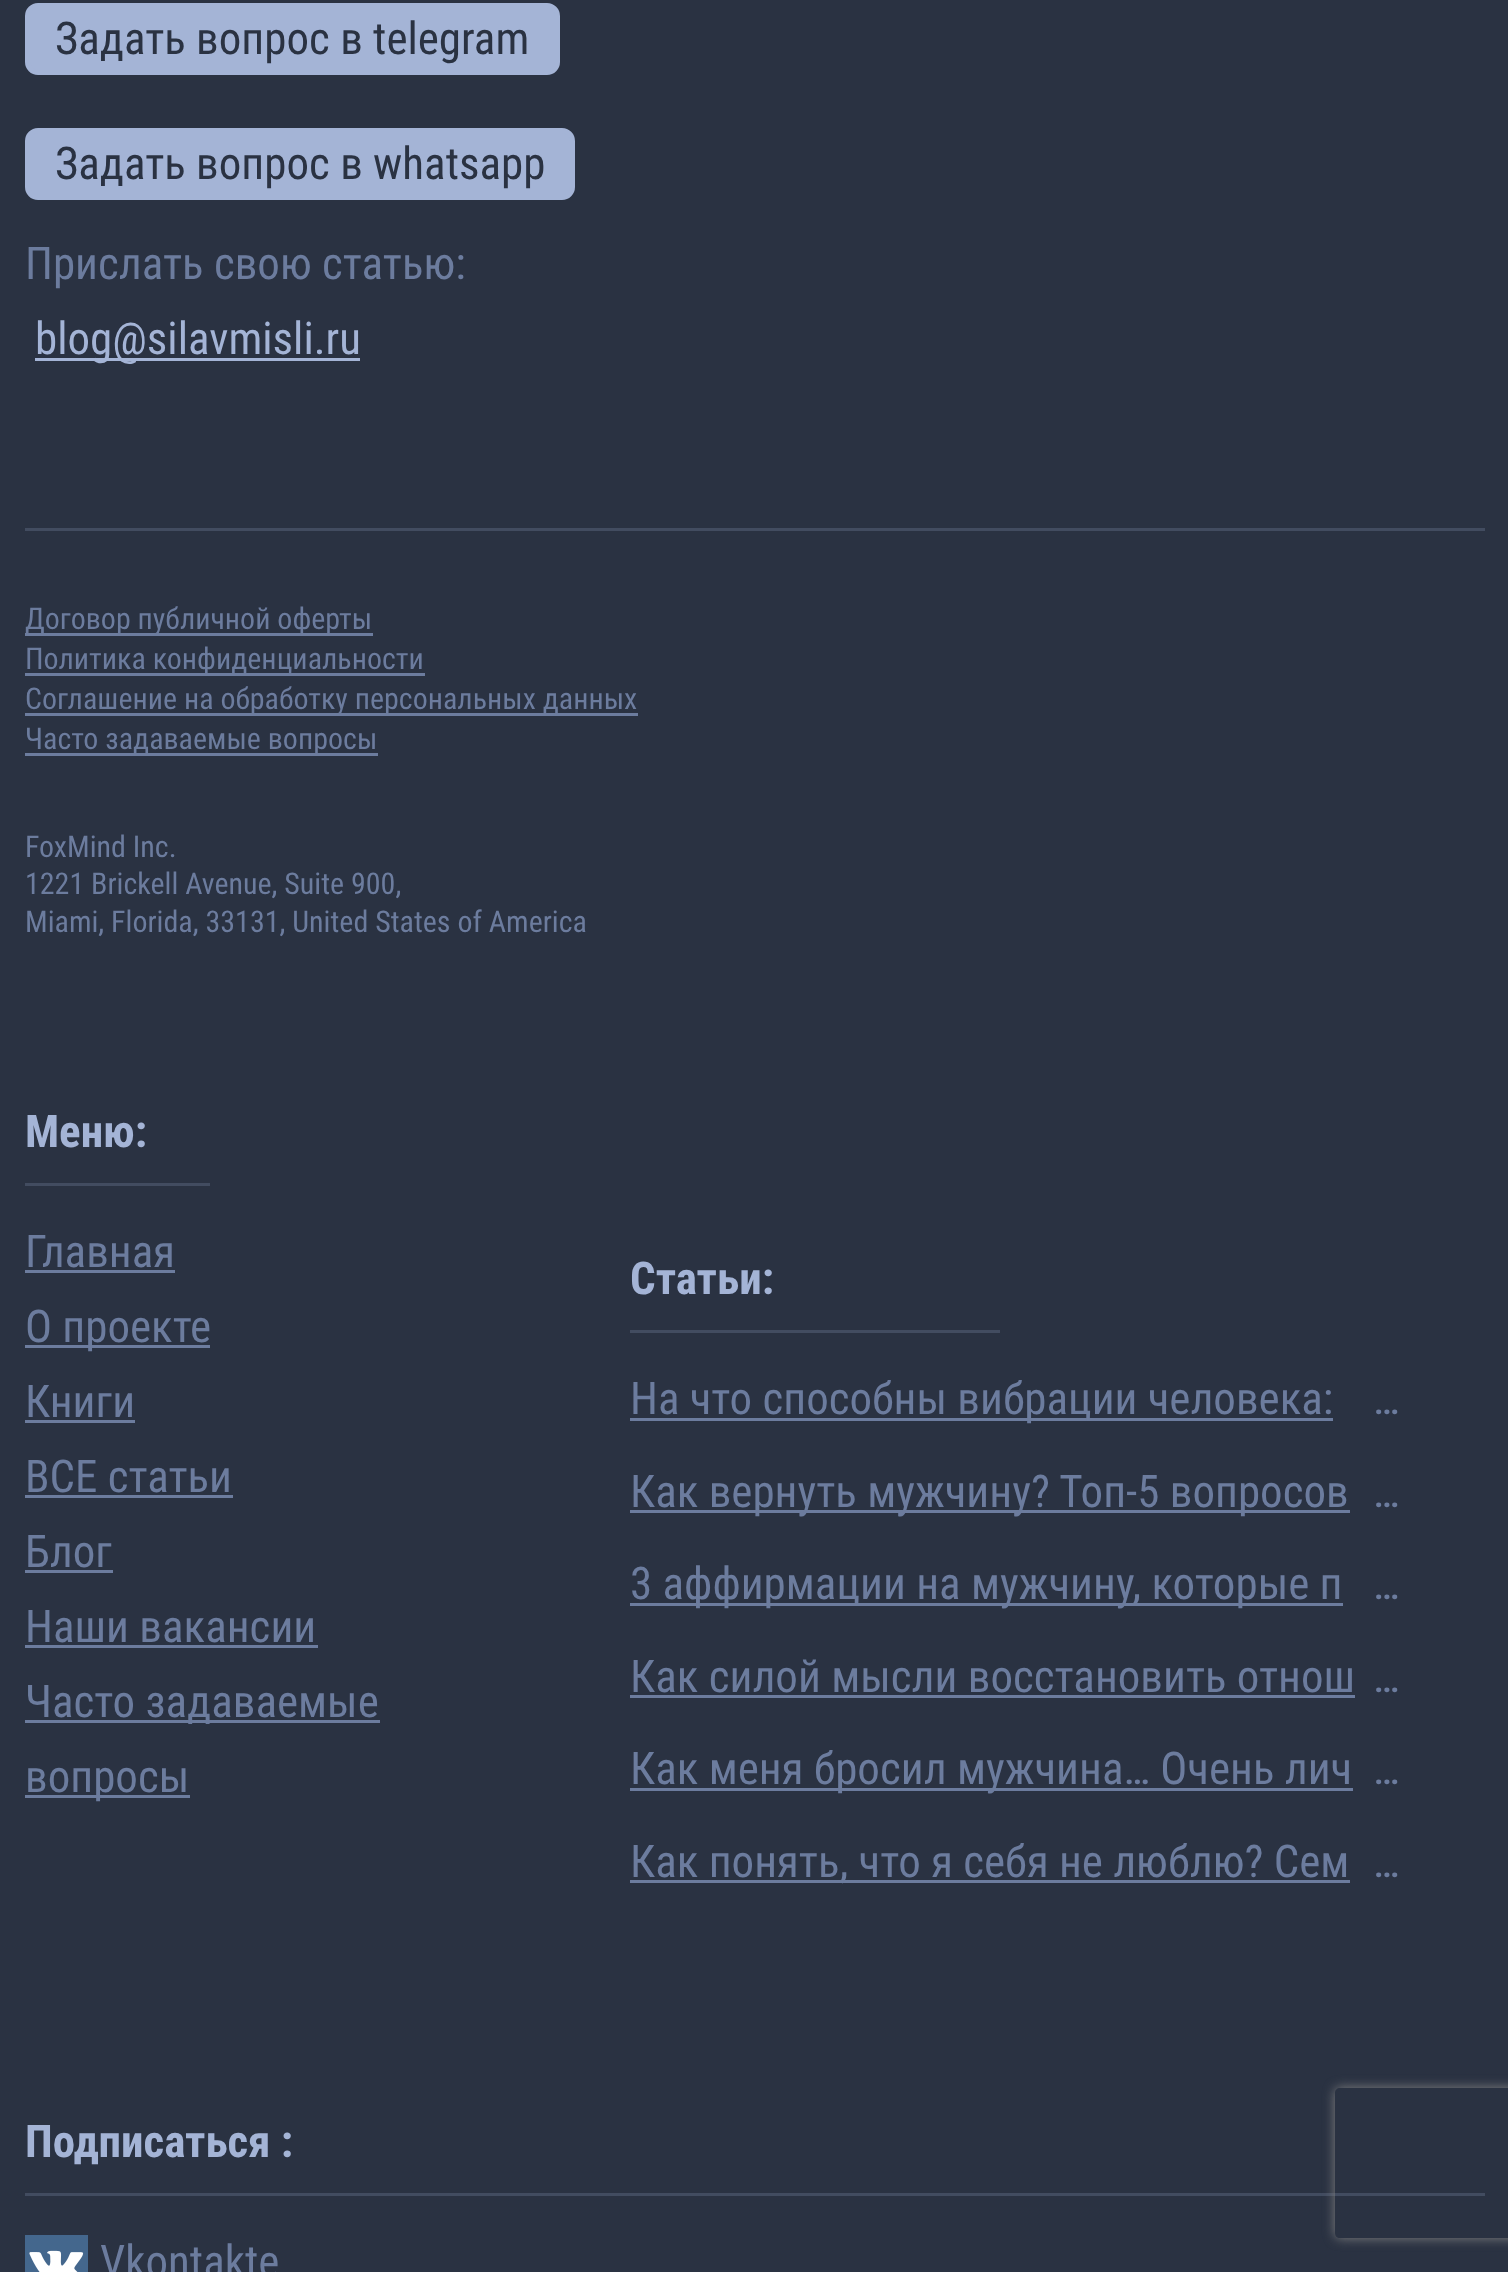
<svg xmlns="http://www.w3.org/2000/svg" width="1508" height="2272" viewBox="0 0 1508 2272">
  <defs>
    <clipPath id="clip1"><path d="M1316 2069H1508V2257H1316ZM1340 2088H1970C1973 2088 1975 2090 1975 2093V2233C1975 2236 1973 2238 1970 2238H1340C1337 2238 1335 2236 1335 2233V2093C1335 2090 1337 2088 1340 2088Z" clip-rule="evenodd"/></clipPath>
  </defs>
  <rect width="100%" height="100%" fill="rgb(42,50,66)"/>
  <rect x="27.5" y="5.5" width="530" height="67" rx="10.5" fill="rgb(164,180,214)" stroke="rgb(164,180,214)" stroke-width="5"/>
  <text x="55" y="54" font-family="Roboto Condensed" font-size="45" fill="rgb(42,50,66)">Задать вопрос в telegram</text>
  <rect x="27.5" y="130.5" width="545" height="67" rx="10.5" fill="rgb(164,180,214)" stroke="rgb(164,180,214)" stroke-width="5"/>
  <text x="55" y="179" font-family="Roboto Condensed" font-size="45" fill="rgb(42,50,66)">Задать вопрос в whatsapp</text>
  <text x="25" y="279" font-family="Roboto Condensed" font-size="45" fill="rgb(108,124,158)">Прислать свою статью:</text>
  <rect x="35" y="358" width="325" height="3" fill="rgb(164,180,214)"/>
  <text x="35" y="354" font-family="Roboto Condensed" font-size="45" fill="rgb(164,180,214)">blog@silavmisli.ru</text>
  <rect x="25" y="528" width="1460" height="3" fill="rgb(66,76,96)"/>
  <rect x="25" y="633" width="348" height="3" fill="rgb(108,124,158)"/>
  <text x="25" y="629" font-family="Roboto Condensed" font-size="30" fill="rgb(108,124,158)">Договор публичной оферты</text>
  <rect x="25" y="673" width="400" height="3" fill="rgb(108,124,158)"/>
  <text x="25" y="669" font-family="Roboto Condensed" font-size="30" fill="rgb(108,124,158)">Политика конфиденциальности</text>
  <rect x="25" y="713" width="613" height="3" fill="rgb(108,124,158)"/>
  <text x="25" y="709" font-family="Roboto Condensed" font-size="30" fill="rgb(108,124,158)">Соглашение на обработку персональных данных</text>
  <rect x="25" y="753" width="353" height="3" fill="rgb(108,124,158)"/>
  <g font-family="Roboto Condensed" font-size="30" fill="rgb(108,124,158)">
    <text x="25" y="749">Часто задаваемые вопросы</text>
    <text>
      <tspan x="25" y="857">FoxMind Inc.</tspan>
      <tspan x="25" y="894">1221 Brickell Avenue, Suite 900,</tspan>
      <tspan x="25" y="932">Miami, Florida, 33131, United States of America</tspan>
    </text>
  </g>
  <rect x="25" y="1183" width="185" height="3" fill="rgb(66,76,96)"/>
  <text x="25" y="1147" font-family="Roboto Condensed" font-size="45" font-weight="bold" fill="rgb(164,180,214)">Меню:</text>
  <text x="25" y="1267" font-family="Roboto Condensed" font-size="45" fill="rgb(108,124,158)">Главная</text>
  <rect x="25" y="1270" width="150" height="3" fill="rgb(108,124,158)"/>
  <rect x="25" y="1345" width="185" height="3" fill="rgb(108,124,158)"/>
  <g font-family="Roboto Condensed" font-size="45" fill="rgb(108,124,158)">
    <text>
      <tspan x="25" y="1342">О проекте</tspan>
      <tspan x="25" y="1417">Книги</tspan>
    </text>
  </g>
  <rect x="25" y="1420" width="110" height="3" fill="rgb(108,124,158)"/>
  <text x="25" y="1492" font-family="Roboto Condensed" font-size="45" fill="rgb(108,124,158)">ВСЕ статьи</text>
  <rect x="25" y="1495" width="208" height="3" fill="rgb(108,124,158)"/>
  <text x="25" y="1567" font-family="Roboto Condensed" font-size="45" fill="rgb(108,124,158)">Блог</text>
  <rect x="25" y="1570" width="88" height="3" fill="rgb(108,124,158)"/>
  <text x="25" y="1642" font-family="Roboto Condensed" font-size="45" fill="rgb(108,124,158)">Наши вакансии</text>
  <rect x="25" y="1645" width="293" height="3" fill="rgb(108,124,158)"/>
  <rect x="25" y="1720" width="355" height="3" fill="rgb(108,124,158)"/>
  <text x="25" y="1717" font-family="Roboto Condensed" font-size="45" fill="rgb(108,124,158)">Часто задаваемые</text>
  <rect x="25" y="1795" width="165" height="3" fill="rgb(108,124,158)"/>
  <text x="25" y="1792" font-family="Roboto Condensed" font-size="45" fill="rgb(108,124,158)">вопросы</text>
  <rect x="630" y="1330" width="370" height="3" fill="rgb(66,76,96)"/>
  <text x="630" y="1294" font-family="Roboto Condensed" font-size="45" font-weight="bold" fill="rgb(164,180,214)">Статьи:</text>
  <rect x="630" y="1418" width="703" height="3" fill="rgb(108,124,158)"/>
  <g font-family="Roboto Condensed" font-size="45" fill="rgb(108,124,158)">
    <text x="630" y="1414">На что способны вибрации человека:</text>
    <text x="1373" y="1414">…</text>
  </g>
  <rect x="630" y="1510" width="720" height="3" fill="rgb(108,124,158)"/>
  <g font-family="Roboto Condensed" font-size="45" fill="rgb(108,124,158)">
    <text x="630" y="1507">Как вернуть мужчину? Топ-5 вопросов</text>
    <text x="1373" y="1507">…</text>
  </g>
  <rect x="630" y="1603" width="713" height="3" fill="rgb(108,124,158)"/>
  <g font-family="Roboto Condensed" font-size="45" fill="rgb(108,124,158)">
    <text x="630" y="1599">3 аффирмации на мужчину, которые п</text>
    <text x="1373" y="1599">…</text>
    <text x="630" y="1692">Как силой мысли восстановить отнош</text>
  </g>
  <rect x="630" y="1695" width="725" height="3" fill="rgb(108,124,158)"/>
  <text x="1373" y="1692" font-family="Roboto Condensed" font-size="45" fill="rgb(108,124,158)">…</text>
  <rect x="630" y="1788" width="723" height="3" fill="rgb(108,124,158)"/>
  <g font-family="Roboto Condensed" font-size="45" fill="rgb(108,124,158)">
    <text x="630" y="1784">Как меня бросил мужчина… Очень лич</text>
    <text x="1373" y="1784">…</text>
  </g>
  <rect x="630" y="1880" width="720" height="3" fill="rgb(108,124,158)"/>
  <g font-family="Roboto Condensed" font-size="45" fill="rgb(108,124,158)">
    <text x="630" y="1877">Как понять, что я себя не люблю? Сем</text>
    <text x="1373" y="1877">…</text>
  </g>
  <rect x="25" y="2193" width="1460" height="3" fill="rgb(66,76,96)"/>
  <text x="25" y="2157" font-family="Roboto Condensed" font-size="45" font-weight="bold" fill="rgb(164,180,214)">Подписаться :</text>
  <image x="25" y="2235" width="63" height="37" href="pic1.png"/>
  <text x="100" y="2277" font-family="Roboto Condensed" font-size="45" fill="rgb(108,124,158)">Vkontakte</text>
  <g clip-path="url(#clip1)">
    <rect x="1335" y="2088" width="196" height="150" rx="5" fill="rgb(128,128,128)" filter="blur(6px)"/>
  </g>
</svg>
